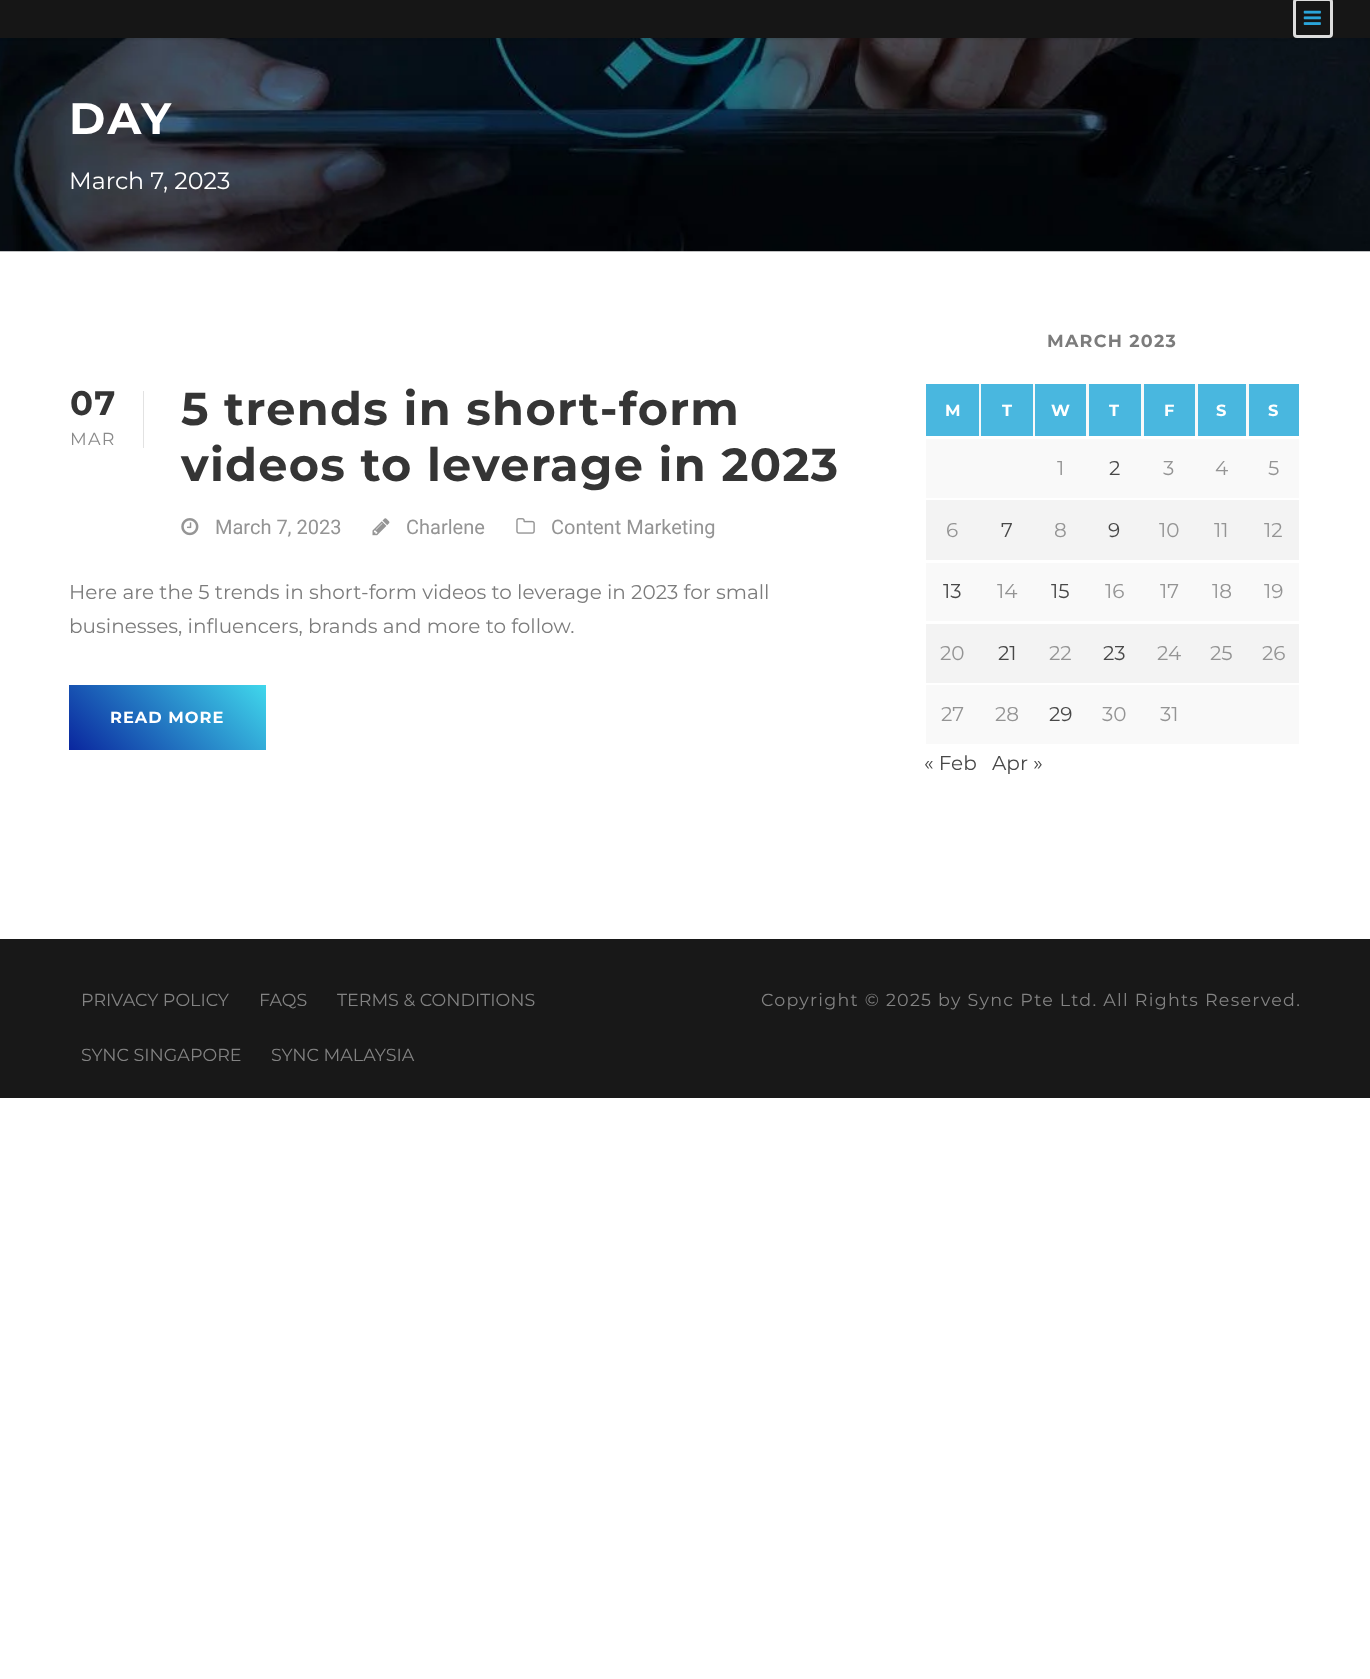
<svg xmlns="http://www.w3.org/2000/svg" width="1370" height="1679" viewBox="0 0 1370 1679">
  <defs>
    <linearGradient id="g1" gradientUnits="userSpaceOnUse" x1="102" y1="783" x2="233" y2="652"><stop offset="0" stop-color="rgb(10,38,158)"/><stop offset="1" stop-color="rgb(64,215,236)"/></linearGradient>
  </defs>
  <rect width="100%" height="100%" fill="rgb(255,255,255)"/>
  <image x="0" y="38" width="1370" height="214" href="pic2.png"/>
  <rect x="0" y="1" width="1370" height="38" fill="rgba(0,0,0,0.1)" filter="blur(1px)"/>
  <rect x="0" y="0" width="1370" height="38" fill="rgb(22,22,22)"/>
  <rect x="1294.5" y="-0.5" width="37" height="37" rx="2.5" fill="none" stroke="rgb(221,221,221)" stroke-width="3"/>
  <image x="1303" y="10" width="18" height="15" href="pic1.png"/>
  <text x="69" y="134" font-family="Montserrat" font-size="44" font-weight="bold" letter-spacing="2.5" fill="rgb(255,255,255)">DAY</text>
  <text x="69" y="189" font-family="Montserrat" font-size="23.75" fill="rgb(255,255,255)">March 7, 2023</text>
  <rect x="143" y="391" width="1" height="57" fill="rgb(226,226,226)"/>
  <text x="70" y="415" font-family="Montserrat" font-size="34" font-weight="bold" letter-spacing="1.25" fill="rgb(53,53,53)">07</text>
  <text x="70" y="445" font-family="Montserrat" font-size="17.5" letter-spacing="1.25" fill="rgb(138,138,138)">MAR</text>
  <g font-family="Montserrat" font-size="46.25" font-weight="bold" letter-spacing="1.25" fill="rgb(53,53,53)">
    <text>
      <tspan x="181" y="425">5 trends in short-form</tspan>
      <tspan x="181" y="481">videos to leverage in 2023</tspan>
    </text>
  </g>
  <image x="181" y="518" width="18" height="18" href="pic3.png"/>
  <text x="215" y="534" font-family="Roboto" font-size="20" fill="rgb(148,148,148)">March 7, 2023</text>
  <image x="372" y="518" width="18" height="18" href="pic4.png"/>
  <text x="406" y="534" font-family="Roboto" font-size="20" fill="rgb(148,148,148)">Charlene</text>
  <image x="516" y="518" width="19" height="16" href="pic5.png"/>
  <text x="551" y="534" font-family="Roboto" font-size="20" fill="rgb(148,148,148)">Content Marketing</text>
  <g font-family="Montserrat" font-size="20" fill="rgb(124,124,124)">
    <text>
      <tspan x="69" y="599">Here are the 5 trends in short-form videos to leverage in 2023 for small</tspan>
      <tspan x="69" y="633">businesses, influencers, brands and more to follow.</tspan>
    </text>
  </g>
  <rect x="69" y="685" width="197" height="65" fill="url(#g1)"/>
  <text x="110" y="723" font-family="Montserrat" font-size="16.25" font-weight="bold" letter-spacing="1" fill="rgb(255,255,255)">READ MORE</text>
  <text x="1047" y="347" font-family="Montserrat" font-size="17.5" font-weight="bold" letter-spacing="1.25" fill="rgb(124,124,124)">MARCH 2023</text>
  <rect x="979" y="384" width="270" height="52" fill="rgb(249,249,249)"/>
  <rect x="926" y="384" width="53" height="52" fill="rgb(73,183,223)"/>
  <text x="945" y="416" font-family="Montserrat" font-size="16.25" font-weight="bold" fill="rgb(255,255,255)">M</text>
  <rect x="981" y="384" width="52" height="52" fill="rgb(73,183,223)"/>
  <text x="1002" y="416" font-family="Montserrat" font-size="16.25" font-weight="bold" fill="rgb(255,255,255)">T</text>
  <rect x="1035" y="384" width="51" height="52" fill="rgb(73,183,223)"/>
  <text x="1051" y="416" font-family="Montserrat" font-size="16.25" font-weight="bold" fill="rgb(255,255,255)">W</text>
  <rect x="1089" y="384" width="52" height="52" fill="rgb(73,183,223)"/>
  <text x="1109" y="416" font-family="Montserrat" font-size="16.25" font-weight="bold" fill="rgb(255,255,255)">T</text>
  <rect x="1144" y="384" width="51" height="52" fill="rgb(73,183,223)"/>
  <text x="1164" y="416" font-family="Montserrat" font-size="16.25" font-weight="bold" fill="rgb(255,255,255)">F</text>
  <rect x="1198" y="384" width="48" height="52" fill="rgb(73,183,223)"/>
  <text x="1216" y="416" font-family="Montserrat" font-size="16.25" font-weight="bold" fill="rgb(255,255,255)">S</text>
  <rect x="1249" y="384" width="50" height="52" fill="rgb(73,183,223)"/>
  <text x="1268" y="416" font-family="Montserrat" font-size="16.25" font-weight="bold" fill="rgb(255,255,255)">S</text>
  <rect x="926" y="439" width="373" height="59" fill="rgb(249,249,249)"/>
  <text x="1057" y="475" font-family="Montserrat" font-size="20" fill="rgb(148,148,148)">1</text>
  <text x="1109" y="475" font-family="Montserrat" font-size="20" fill="rgb(72,72,72)">2</text>
  <g font-family="Montserrat" font-size="20" fill="rgb(148,148,148)">
    <text x="1163" y="475">3</text>
    <text x="1215" y="475">4</text>
    <text x="1268" y="475">5</text>
  </g>
  <rect x="926" y="500" width="373" height="60" fill="rgb(243,243,243)"/>
  <text x="946" y="537" font-family="Montserrat" font-size="20" fill="rgb(148,148,148)">6</text>
  <text x="1001" y="537" font-family="Montserrat" font-size="20" fill="rgb(72,72,72)">7</text>
  <text x="1054" y="537" font-family="Montserrat" font-size="20" fill="rgb(148,148,148)">8</text>
  <text x="1108" y="537" font-family="Montserrat" font-size="20" fill="rgb(72,72,72)">9</text>
  <g font-family="Montserrat" font-size="20" fill="rgb(148,148,148)">
    <text x="1159" y="537">10</text>
    <text x="1214" y="537">11</text>
    <text x="1264" y="537">12</text>
  </g>
  <rect x="926" y="563" width="373" height="58" fill="rgb(249,249,249)"/>
  <text x="943" y="598" font-family="Montserrat" font-size="20" fill="rgb(72,72,72)">13</text>
  <text x="997" y="598" font-family="Montserrat" font-size="20" fill="rgb(148,148,148)">14</text>
  <text x="1051" y="598" font-family="Montserrat" font-size="20" fill="rgb(72,72,72)">15</text>
  <g font-family="Montserrat" font-size="20" fill="rgb(148,148,148)">
    <text x="1105" y="598">16</text>
    <text x="1160" y="598">17</text>
    <text x="1212" y="598">18</text>
    <text x="1264" y="598">19</text>
  </g>
  <rect x="926" y="624" width="373" height="59" fill="rgb(243,243,243)"/>
  <text x="940" y="660" font-family="Montserrat" font-size="20" fill="rgb(148,148,148)">20</text>
  <text x="998" y="660" font-family="Montserrat" font-size="20" fill="rgb(72,72,72)">21</text>
  <text x="1049" y="660" font-family="Montserrat" font-size="20" fill="rgb(148,148,148)">22</text>
  <text x="1103" y="660" font-family="Montserrat" font-size="20" fill="rgb(72,72,72)">23</text>
  <g font-family="Montserrat" font-size="20" fill="rgb(148,148,148)">
    <text x="1157" y="660">24</text>
    <text x="1210" y="660">25</text>
    <text x="1262" y="660">26</text>
  </g>
  <rect x="926" y="685" width="373" height="59" fill="rgb(249,249,249)"/>
  <g font-family="Montserrat" font-size="20" fill="rgb(148,148,148)">
    <text x="941" y="721">27</text>
    <text x="995" y="721">28</text>
  </g>
  <text x="1049" y="721" font-family="Montserrat" font-size="20" fill="rgb(72,72,72)">29</text>
  <g font-family="Montserrat" font-size="20" fill="rgb(148,148,148)">
    <text x="1102" y="721">30</text>
    <text x="1160" y="721">31</text>
  </g>
  <g font-family="Montserrat" font-size="20" fill="rgb(72,72,72)">
    <text x="924" y="770">« Feb</text>
    <text x="992" y="770">Apr »</text>
  </g>
  <rect x="0" y="939" width="1370" height="159" fill="rgb(24,24,24)"/>
  <g font-family="Montserrat" font-size="17.5" fill="rgb(131,131,131)">
    <text x="81" y="1006">PRIVACY POLICY</text>
    <text x="259" y="1006">FAQS</text>
    <text x="337" y="1006">TERMS &amp; CONDITIONS</text>
  </g>
  <text x="761" y="1006" font-family="Montserrat" font-size="17.5" letter-spacing="1.25" fill="rgb(131,131,131)">Copyright © 2025 by Sync Pte Ltd. All Rights Reserved.</text>
  <g font-family="Montserrat" font-size="17.5" fill="rgb(131,131,131)">
    <text x="81" y="1061">SYNC SINGAPORE</text>
    <text x="271" y="1061">SYNC MALAYSIA</text>
  </g>
</svg>
